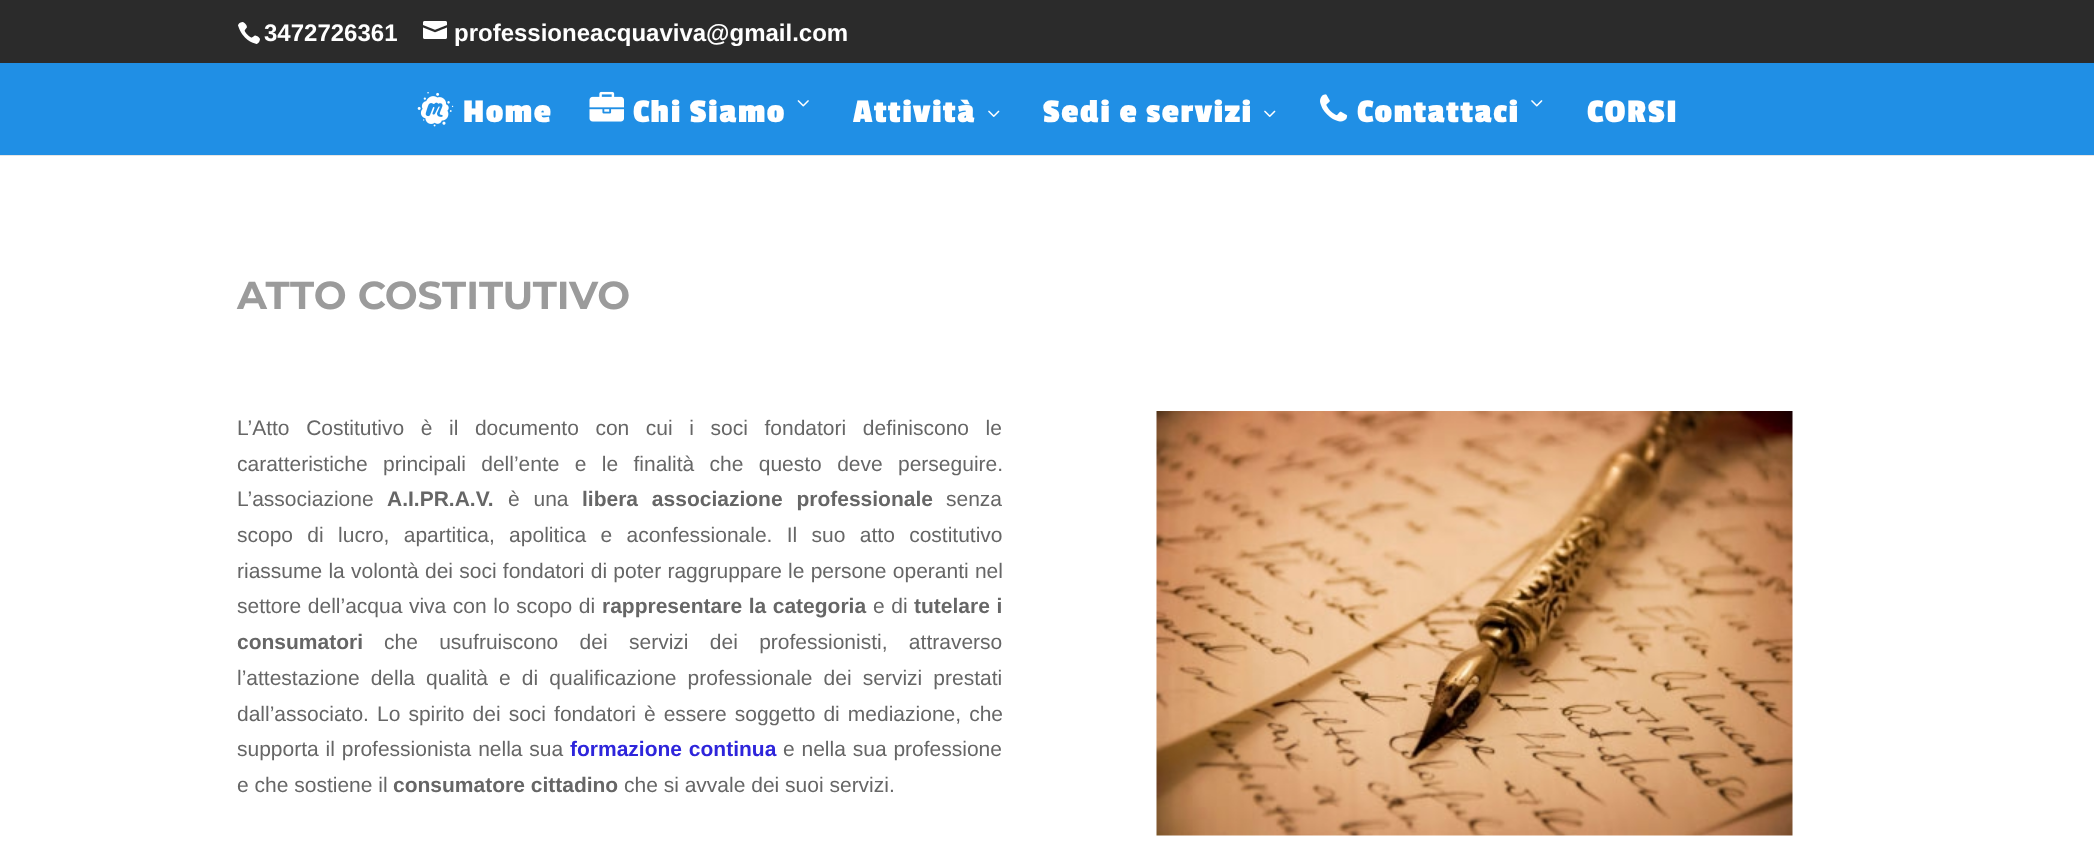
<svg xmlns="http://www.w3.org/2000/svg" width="2094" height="843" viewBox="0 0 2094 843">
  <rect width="100%" height="100%" fill="rgb(255,255,255)"/>
  <rect x="0" y="0" width="2094" height="63" fill="rgb(43,43,43)"/>
  <image x="238" y="22" width="22" height="22" href="pic1.png"/>
  <text x="264" y="41" font-family="Liberation Sans" font-size="24" font-weight="bold" fill="rgb(255,255,255)">3472726361</text>
  <image x="423" y="21" width="24" height="18" href="pic2.png"/>
  <text x="454" y="41" font-family="Liberation Sans" font-size="24" font-weight="bold" fill="rgb(255,255,255)">professioneacquaviva@gmail.com</text>
  <rect x="0" y="155" width="2094" height="1" fill="rgba(0,0,0,0.1)"/>
  <rect x="0" y="63" width="2094" height="92" fill="rgb(32,143,229)"/>
  <image x="417" y="92" width="37" height="35" href="pic3.png"/>
  <text x="463" y="122" font-family="Passion One" font-size="34.5" font-weight="bold" letter-spacing="1.5" fill="rgb(255,255,255)">Home</text>
  <image x="589" y="91" width="35" height="31" href="pic4.png"/>
  <text x="633" y="122" font-family="Passion One" font-size="34.5" font-weight="bold" letter-spacing="1.5" fill="rgb(255,255,255)">Chi Siamo</text>
  <image x="797" y="100" width="12" height="7" href="pic5.png"/>
  <text x="853" y="122" font-family="Passion One" font-size="34.5" font-weight="bold" letter-spacing="1.5" fill="rgb(255,255,255)">Attività</text>
  <image x="988" y="110" width="12" height="7" href="pic6.png"/>
  <text x="1043" y="122" font-family="Passion One" font-size="34.5" font-weight="bold" letter-spacing="1.5" fill="rgb(255,255,255)">Sedi e servizi</text>
  <image x="1264" y="110" width="12" height="7" href="pic6.png"/>
  <image x="1320" y="94" width="28" height="28" href="pic7.png"/>
  <text x="1357" y="122" font-family="Passion One" font-size="34.5" font-weight="bold" letter-spacing="1.5" fill="rgb(255,255,255)">Contattaci</text>
  <image x="1531" y="100" width="12" height="7" href="pic8.png"/>
  <text x="1587" y="122" font-family="Passion One" font-size="34.5" font-weight="bold" letter-spacing="1.5" fill="rgb(255,255,255)">CORSI</text>
  <text x="237" y="309" font-family="Montserrat" font-size="39" font-weight="100" fill="rgb(155,155,155)">ATTO COSTITUTIVO</text>
  <g font-family="Liberation Sans" font-size="21" fill="rgb(102,102,102)">
    <text>
      <tspan x="237" y="435" word-spacing="10.75">L’Atto Costitutivo è il documento con cui i soci fondatori definiscono le</tspan>
      <tspan x="237" y="471" word-spacing="9.5">caratteristiche principali dell’ente e le finalità che questo deve perseguire.</tspan>
      <tspan x="237" y="506">L’associazione</tspan>
    </text>
  </g>
  <text x="387" y="506" font-family="Liberation Sans" font-size="21" font-weight="bold" fill="rgb(102,102,102)">A.I.PR.A.V.</text>
  <text x="508" y="506" word-spacing="8" font-family="Liberation Sans" font-size="21" fill="rgb(102,102,102)">è una</text>
  <text x="582" y="506" word-spacing="8" font-family="Liberation Sans" font-size="21" font-weight="bold" fill="rgb(102,102,102)">libera associazione professionale</text>
  <g font-family="Liberation Sans" font-size="21" fill="rgb(102,102,102)">
    <text x="946" y="506">senza</text>
    <text>
      <tspan x="237" y="542" word-spacing="8.5">scopo di lucro, apartitica, apolitica e aconfessionale. Il suo atto costitutivo</tspan>
      <tspan x="237" y="578" word-spacing="0.4">riassume la volontà dei soci fondatori di poter raggruppare le persone operanti nel</tspan>
      <tspan x="237" y="613" word-spacing="0.75">settore dell’acqua viva con lo scopo di</tspan>
    </text>
  </g>
  <text x="602" y="613" word-spacing="0.75" font-family="Liberation Sans" font-size="21" font-weight="bold" fill="rgb(102,102,102)">rappresentare la categoria</text>
  <text x="873" y="613" word-spacing="0.75" font-family="Liberation Sans" font-size="21" fill="rgb(102,102,102)">e di</text>
  <g font-family="Liberation Sans" font-size="21" font-weight="bold" fill="rgb(102,102,102)">
    <text x="914" y="613" word-spacing="0.75">tutelare i</text>
    <text x="237" y="649">consumatori</text>
  </g>
  <g font-family="Liberation Sans" font-size="21" fill="rgb(102,102,102)">
    <text x="384" y="649" word-spacing="15.5">che usufruiscono dei servizi dei professionisti, attraverso</text>
    <text>
      <tspan x="237" y="685" word-spacing="5.25">l’attestazione della qualità e di qualificazione professionale dei servizi prestati</tspan>
      <tspan x="237" y="721" word-spacing="2.25">dall’associato. Lo spirito dei soci fondatori è essere soggetto di mediazione, che</tspan>
      <tspan x="237" y="756" word-spacing="1">supporta il professionista nella sua</tspan>
    </text>
  </g>
  <text x="570" y="756" word-spacing="1" font-family="Liberation Sans" font-size="21" font-weight="bold" fill="rgb(46,37,219)">formazione continua</text>
  <g font-family="Liberation Sans" font-size="21" fill="rgb(102,102,102)">
    <text x="783" y="756" word-spacing="1">e nella sua professione</text>
    <text x="237" y="792">e che sostiene il</text>
  </g>
  <text x="393" y="792" font-family="Liberation Sans" font-size="21" font-weight="bold" fill="rgb(102,102,102)">consumatore cittadino</text>
  <text x="624" y="792" font-family="Liberation Sans" font-size="21" fill="rgb(102,102,102)">che si avvale dei suoi servizi.</text>
  <image x="1156" y="411" width="637" height="425" href="pic9.png"/>
</svg>
